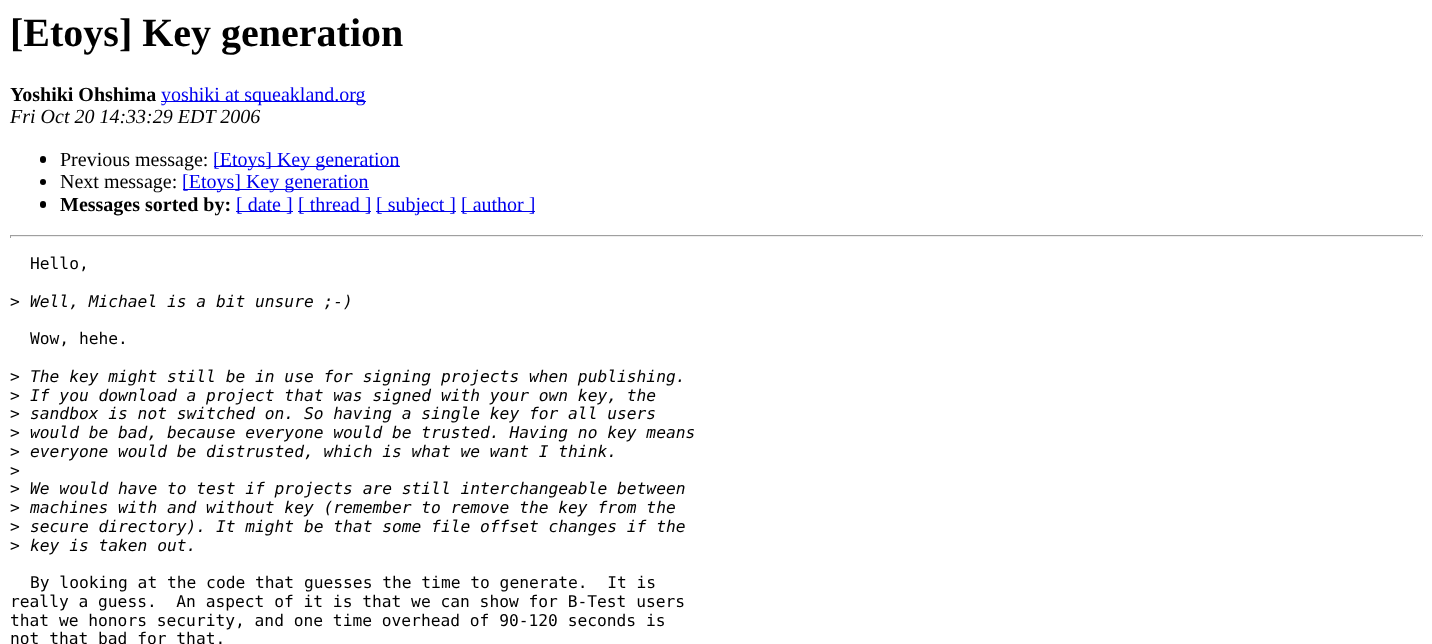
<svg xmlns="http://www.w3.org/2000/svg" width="1432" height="644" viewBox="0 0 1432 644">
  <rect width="100%" height="100%" fill="rgb(255,255,255)"/>
  <text x="10" y="46" font-family="Liberation Serif" font-size="40" font-weight="bold" fill="rgb(0,0,0)">[Etoys] Key generation</text>
  <text x="10" y="101" font-family="Liberation Serif" font-size="20" font-weight="bold" fill="rgb(0,0,0)">Yoshiki Ohshima</text>
  <rect x="161" y="101" width="205" height="1" fill="rgb(0,0,238)"/>
  <text x="161" y="101" font-family="Liberation Serif" font-size="20" fill="rgb(0,0,238)">yoshiki at squeakland.org</text>
  <text x="10" y="123" font-family="Liberation Serif" font-size="20" font-style="italic" fill="rgb(0,0,0)">Fri Oct 20 14:33:29 EDT 2006</text>
  <rect x="40" y="156" width="6" height="7" rx="3" fill="rgb(0,0,0)"/>
  <text x="60" y="166" font-family="Liberation Serif" font-size="20" fill="rgb(0,0,0)">Previous message:</text>
  <rect x="214" y="166" width="186" height="1" fill="rgb(0,0,238)"/>
  <text x="213" y="166" font-family="Liberation Serif" font-size="20" fill="rgb(0,0,238)">[Etoys] Key generation</text>
  <circle cx="43" cy="182" r="3" fill="rgb(0,0,0)"/>
  <text x="60" y="188" font-family="Liberation Serif" font-size="20" fill="rgb(0,0,0)">Next message:</text>
  <rect x="183" y="189" width="186" height="1" fill="rgb(0,0,238)"/>
  <text x="182" y="188" font-family="Liberation Serif" font-size="20" fill="rgb(0,0,238)">[Etoys] Key generation</text>
  <rect x="40" y="201" width="6" height="7" rx="3" fill="rgb(0,0,0)"/>
  <text x="60" y="211" font-family="Liberation Serif" font-size="20" font-weight="bold" fill="rgb(0,0,0)">Messages sorted by:</text>
  <rect x="236" y="211" width="57" height="1" fill="rgb(0,0,238)"/>
  <text x="236" y="211" font-family="Liberation Serif" font-size="20" fill="rgb(0,0,238)">[ date ]</text>
  <rect x="298" y="211" width="73" height="1" fill="rgb(0,0,238)"/>
  <text x="298" y="211" font-family="Liberation Serif" font-size="20" fill="rgb(0,0,238)">[ thread ]</text>
  <rect x="376" y="211" width="80" height="1" fill="rgb(0,0,238)"/>
  <text x="376" y="211" font-family="Liberation Serif" font-size="20" fill="rgb(0,0,238)">[ subject ]</text>
  <rect x="461" y="211" width="74" height="1" fill="rgb(0,0,238)"/>
  <text x="461" y="211" font-family="Liberation Serif" font-size="20" fill="rgb(0,0,238)">[ author ]</text>
  <rect x="10" y="235" width="1413" height="1" fill="rgb(159,159,159)"/>
  <rect x="1421" y="235" width="1" height="3" fill="rgb(238,238,238)"/>
  <rect x="10" y="236" width="1413" height="1" fill="rgb(238,238,238)"/>
  <rect x="10" y="235" width="1" height="3" fill="rgb(159,159,159)"/>
  <g font-family="DejaVu Sans Mono" font-size="16.25" fill="rgb(0,0,0)">
    <text x="30" y="269">Hello,</text>
    <text x="10" y="307">&gt;</text>
  </g>
  <text x="30" y="307" font-family="DejaVu Sans Mono" font-size="16.25" font-style="italic" fill="rgb(0,0,0)">Well, Michael is a bit unsure ;-)</text>
  <g font-family="DejaVu Sans Mono" font-size="16.25" fill="rgb(0,0,0)">
    <text x="30" y="344">Wow, hehe.</text>
    <text x="10" y="382">&gt;</text>
  </g>
  <text x="30" y="382" font-family="DejaVu Sans Mono" font-size="16.25" font-style="italic" fill="rgb(0,0,0)">The key might still be in use for signing projects when publishing.</text>
  <text x="10" y="401" font-family="DejaVu Sans Mono" font-size="16.25" fill="rgb(0,0,0)">&gt;</text>
  <text x="30" y="401" font-family="DejaVu Sans Mono" font-size="16.25" font-style="italic" fill="rgb(0,0,0)">If you download a project that was signed with your own key, the</text>
  <text x="10" y="419" font-family="DejaVu Sans Mono" font-size="16.25" fill="rgb(0,0,0)">&gt;</text>
  <text x="30" y="419" font-family="DejaVu Sans Mono" font-size="16.25" font-style="italic" fill="rgb(0,0,0)">sandbox is not switched on. So having a single key for all users</text>
  <text x="10" y="438" font-family="DejaVu Sans Mono" font-size="16.25" fill="rgb(0,0,0)">&gt;</text>
  <text x="30" y="438" font-family="DejaVu Sans Mono" font-size="16.25" font-style="italic" fill="rgb(0,0,0)">would be bad, because everyone would be trusted. Having no key means</text>
  <text x="10" y="457" font-family="DejaVu Sans Mono" font-size="16.25" fill="rgb(0,0,0)">&gt;</text>
  <text x="30" y="457" font-family="DejaVu Sans Mono" font-size="16.25" font-style="italic" fill="rgb(0,0,0)">everyone would be distrusted, which is what we want I think.</text>
  <g font-family="DejaVu Sans Mono" font-size="16.25" fill="rgb(0,0,0)">
    <text>
      <tspan x="10" y="476">&gt;</tspan>
      <tspan x="10" y="494">&gt;</tspan>
    </text>
  </g>
  <text x="30" y="494" font-family="DejaVu Sans Mono" font-size="16.25" font-style="italic" fill="rgb(0,0,0)">We would have to test if projects are still interchangeable between</text>
  <text x="10" y="513" font-family="DejaVu Sans Mono" font-size="16.25" fill="rgb(0,0,0)">&gt;</text>
  <text x="30" y="513" font-family="DejaVu Sans Mono" font-size="16.25" font-style="italic" fill="rgb(0,0,0)">machines with and without key (remember to remove the key from the</text>
  <text x="10" y="532" font-family="DejaVu Sans Mono" font-size="16.25" fill="rgb(0,0,0)">&gt;</text>
  <text x="30" y="532" font-family="DejaVu Sans Mono" font-size="16.25" font-style="italic" fill="rgb(0,0,0)">secure directory). It might be that some file offset changes if the</text>
  <text x="10" y="551" font-family="DejaVu Sans Mono" font-size="16.25" fill="rgb(0,0,0)">&gt;</text>
  <text x="30" y="551" font-family="DejaVu Sans Mono" font-size="16.25" font-style="italic" fill="rgb(0,0,0)">key is taken out.</text>
  <g font-family="DejaVu Sans Mono" font-size="16.25" fill="rgb(0,0,0)">
    <text x="30" y="588" xml:space="preserve">By looking at the code that guesses the time to generate.  It is</text>
    <text xml:space="preserve"><tspan x="10" y="607">really a guess.  An aspect of it is that we can show for B-Test users</tspan><tspan x="10" y="626">that we honors security, and one time overhead of 90-120 seconds is</tspan><tspan x="10" y="644">not that bad for that.</tspan></text>
  </g>
</svg>
